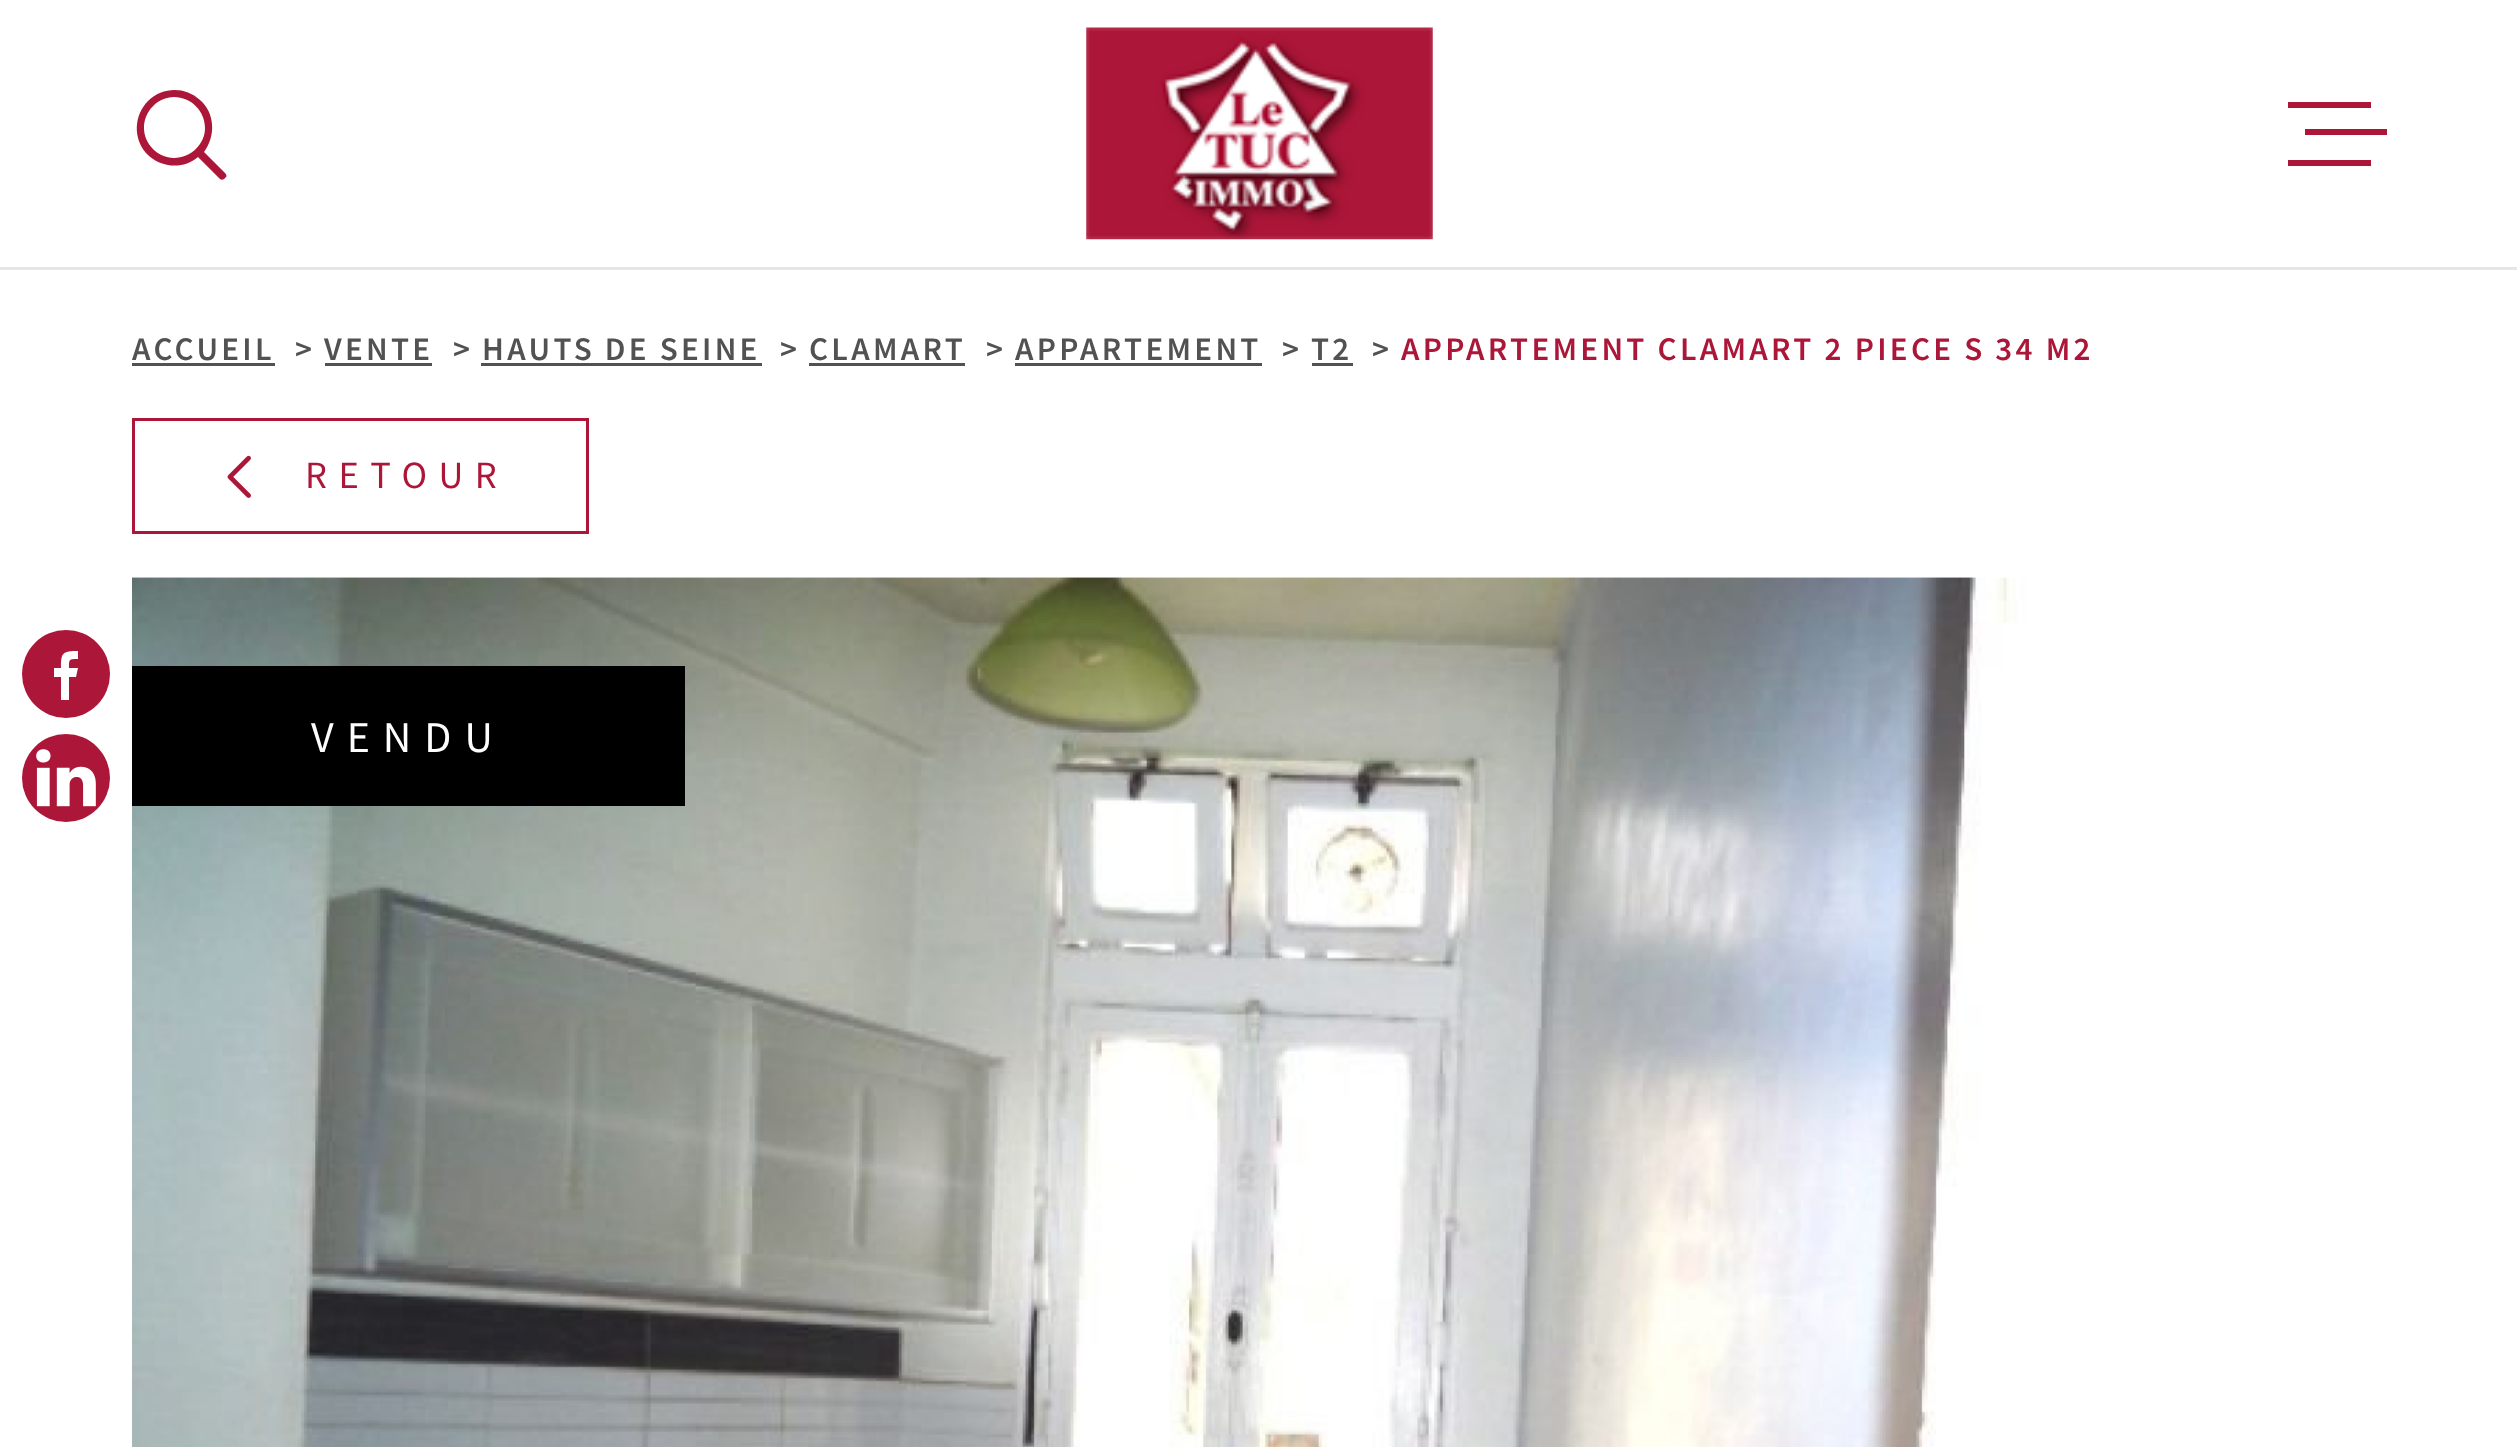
<svg xmlns="http://www.w3.org/2000/svg" width="2517" height="1447" viewBox="0 0 2517 1447">
  <rect width="100%" height="100%" fill="rgb(255,255,255)"/>
  <circle cx="66" cy="674" r="44" fill="rgb(172,22,56)"/>
  <path d="M78 668H69C69 659 69 659 78 659V651C62 651 61 653 61 668H54V677H61V700H69V677H76Z" fill="rgb(255,255,255)"/>
  <circle cx="66" cy="778" r="44" fill="rgb(172,22,56)"/>
  <image x="36" y="749" width="60" height="58" href="pic1.png"/>
  <path d="M225 173L204 152C216 136 215 113 200 100C185 86 162 87 148 101C134 115 133 138 146 153C160 168 183 170 198 157L220 179C221 180 224 180 225 178C227 177 227 175 225 173ZM174 158C158 158 144 144 144 128C144 111 158 97 174 97C191 97 205 111 205 128C205 144 191 158 174 158Z" fill="rgb(172,22,56)"/>
  <image x="1086" y="27" width="347" height="213" href="pic2.png"/>
  <rect x="2305" y="129" width="82" height="6" fill="rgb(172,22,56)"/>
  <rect x="2288" y="102" width="83" height="6" fill="rgb(172,22,56)"/>
  <rect x="2288" y="160" width="83" height="6" fill="rgb(172,22,56)"/>
  <rect x="0" y="267" width="2517" height="3" fill="rgb(230,230,230)"/>
  <text x="132" y="360" font-family="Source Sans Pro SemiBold" font-size="33" font-weight="600" letter-spacing="3.3" fill="rgb(82,82,82)">ACCUEIL</text>
  <rect x="132" y="363" width="143" height="3" fill="rgb(82,82,82)"/>
  <g font-family="Source Sans Pro SemiBold" font-size="33" font-weight="600" letter-spacing="3.3" fill="rgb(82,82,82)">
    <text x="295" y="360">&gt;</text>
    <text x="324" y="360">VENTE</text>
  </g>
  <rect x="325" y="363" width="107" height="3" fill="rgb(82,82,82)"/>
  <g font-family="Source Sans Pro SemiBold" font-size="33" font-weight="600" letter-spacing="3.3" fill="rgb(82,82,82)">
    <text x="453" y="360">&gt;</text>
    <text x="482" y="360">HAUTS DE SEINE</text>
  </g>
  <rect x="481" y="363" width="281" height="3" fill="rgb(82,82,82)"/>
  <g font-family="Source Sans Pro SemiBold" font-size="33" font-weight="600" letter-spacing="3.3" fill="rgb(82,82,82)">
    <text x="780" y="360">&gt;</text>
    <text x="809" y="360">CLAMART</text>
  </g>
  <rect x="809" y="363" width="156" height="3" fill="rgb(82,82,82)"/>
  <g font-family="Source Sans Pro SemiBold" font-size="33" font-weight="600" letter-spacing="3.3" fill="rgb(82,82,82)">
    <text x="986" y="360">&gt;</text>
    <text x="1015" y="360">APPARTEMENT</text>
  </g>
  <rect x="1015" y="363" width="247" height="3" fill="rgb(82,82,82)"/>
  <g font-family="Source Sans Pro SemiBold" font-size="33" font-weight="600" letter-spacing="3.3" fill="rgb(82,82,82)">
    <text x="1282" y="360">&gt;</text>
    <text x="1311" y="360">T2</text>
  </g>
  <rect x="1312" y="363" width="41" height="3" fill="rgb(82,82,82)"/>
  <text x="1372" y="360" font-family="Source Sans Pro SemiBold" font-size="33" font-weight="600" letter-spacing="3.3" fill="rgb(82,82,82)">&gt;</text>
  <text x="1401" y="360" font-family="Source Sans Pro SemiBold" font-size="33" font-weight="600" letter-spacing="3.3" fill="rgb(172,22,56)">APPARTEMENT CLAMART 2 PIECE S 34 M2</text>
  <rect x="133.5" y="419.5" width="454" height="113" fill="none" stroke="rgb(172,22,56)" stroke-width="3"/>
  <image x="227" y="455" width="24" height="43" href="pic3.png"/>
  <text x="305" y="488" font-family="Source Sans Pro" font-size="38.5" letter-spacing="11.5" fill="rgb(172,22,56)">RETOUR</text>
  <image x="132" y="577" width="2255" height="870" href="pic4.png"/>
  <rect x="132" y="666" width="553" height="140" fill="rgb(0,0,0)"/>
  <text x="311" y="752" font-family="Source Sans Pro" font-size="44" letter-spacing="13" fill="rgb(255,255,255)">VENDU</text>
</svg>
